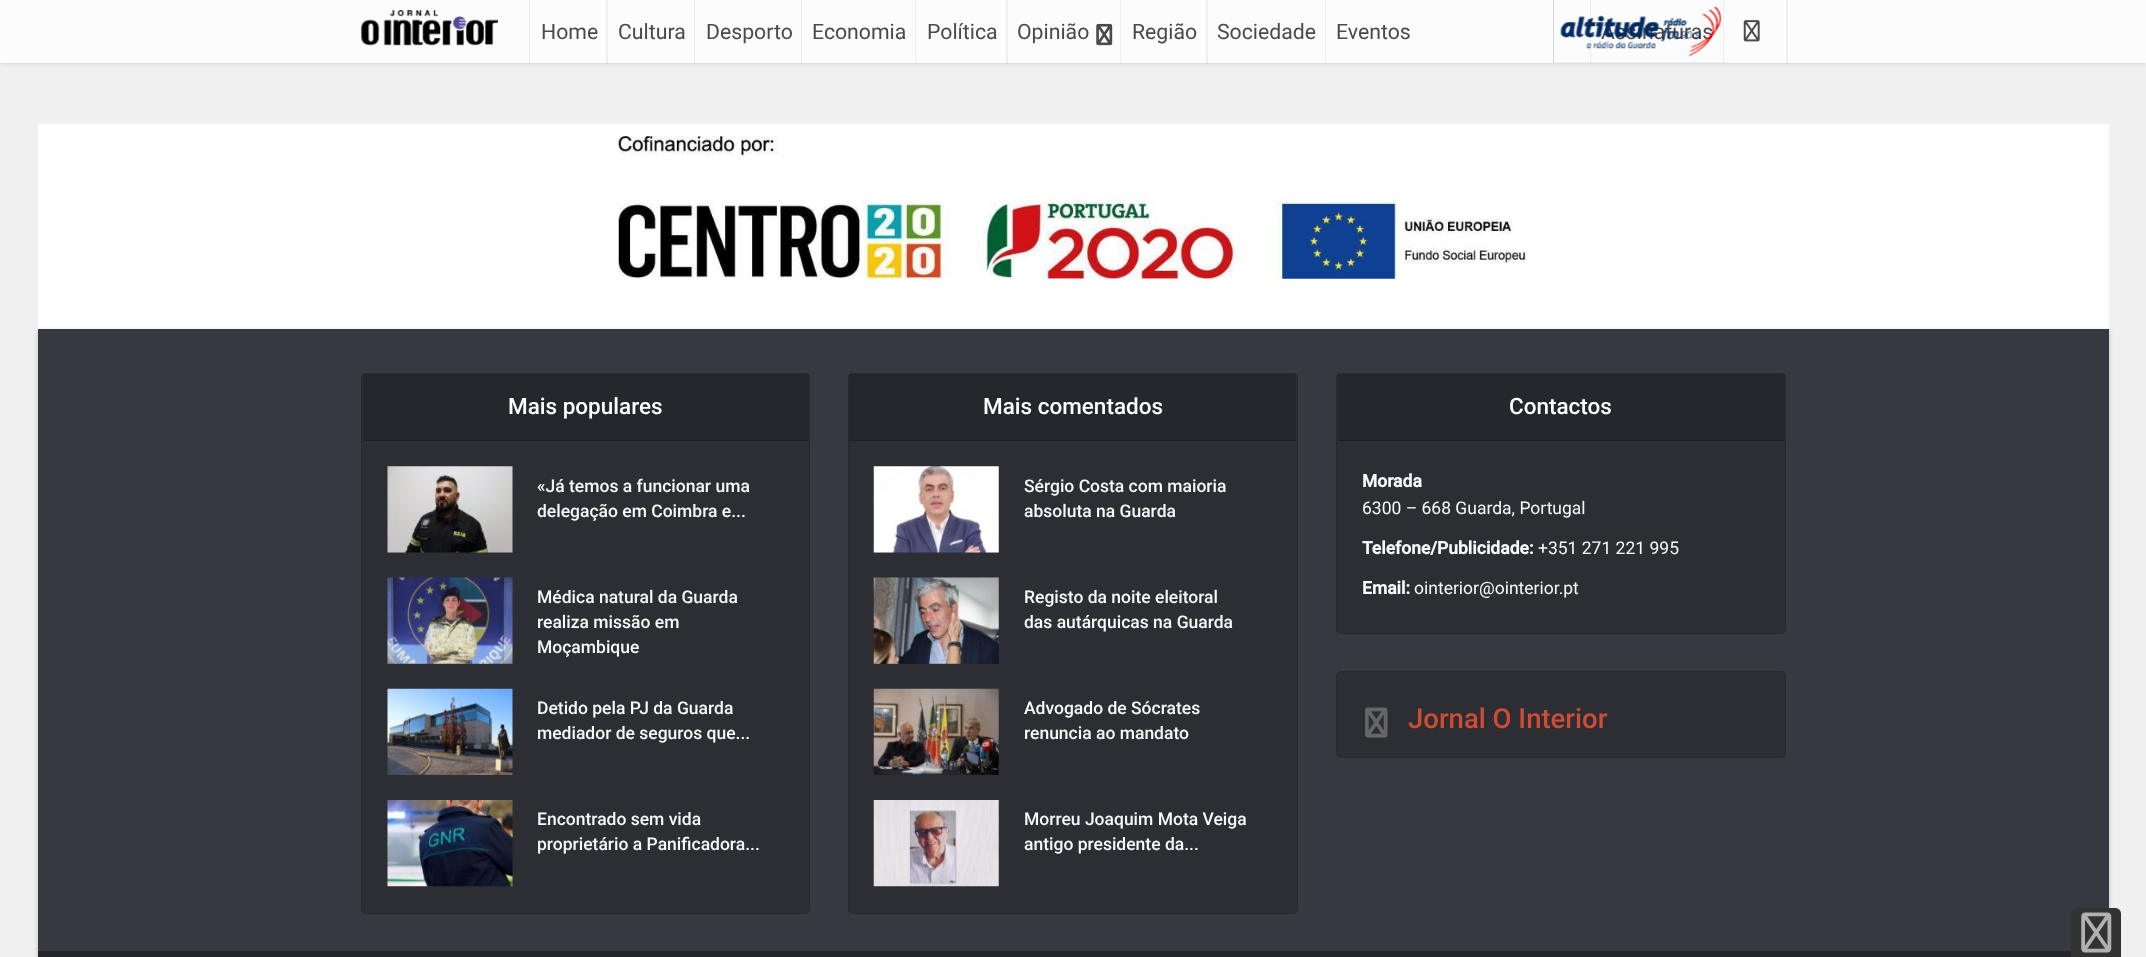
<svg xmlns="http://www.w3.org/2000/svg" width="2146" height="957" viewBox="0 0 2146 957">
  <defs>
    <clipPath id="clip1"><path d="M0 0H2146V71H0ZM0 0H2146V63H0Z" clip-rule="evenodd"/></clipPath>
  </defs>
  <rect width="100%" height="100%" fill="rgb(240,240,240)"/>
  <g clip-path="url(#clip1)">
    <rect x="0" y="1" width="2146" height="63" fill="rgba(0,0,0,0.1)" filter="blur(2px)"/>
  </g>
  <rect x="0" y="0" width="2146" height="63" fill="rgba(252,252,252,0.95)"/>
  <image x="360" y="10" width="138" height="36" href="pic1.png"/>
  <path d="M529 0V64H606H530V0Z" fill="rgba(0,0,0,0.05)"/>
  <text x="541" y="39" font-family="Roboto" font-size="21.25" fill="rgb(74,74,74)">Home</text>
  <path d="M606 0V64H694H608V0Z" fill="rgba(0,0,0,0.05)"/>
  <text x="618" y="39" font-family="Roboto" font-size="21.25" fill="rgb(74,74,74)">Cultura</text>
  <path d="M694 0V64H801H695V0Z" fill="rgba(0,0,0,0.05)"/>
  <text x="706" y="39" font-family="Roboto" font-size="21.25" fill="rgb(74,74,74)">Desporto</text>
  <path d="M801 0V64H915H802V0Z" fill="rgba(0,0,0,0.05)"/>
  <text x="812" y="39" font-family="Roboto" font-size="21.25" fill="rgb(74,74,74)">Economia</text>
  <path d="M915 0V64H1006H916V0Z" fill="rgba(0,0,0,0.05)"/>
  <text x="927" y="39" font-family="Roboto" font-size="21.25" fill="rgb(74,74,74)">Política</text>
  <path d="M1006 0V64H1120H1008V0Z" fill="rgba(0,0,0,0.05)"/>
  <text x="1017" y="39" font-family="Roboto" font-size="21.25" fill="rgb(74,74,74)">Opinião</text>
  <image x="1096" y="23" width="17" height="23" href="pic2.png"/>
  <path d="M1120 0V64H1206H1121V0Z" fill="rgba(0,0,0,0.05)"/>
  <text x="1132" y="39" font-family="Roboto" font-size="21.25" fill="rgb(74,74,74)">Região</text>
  <path d="M1206 0V64H1325H1208V0Z" fill="rgba(0,0,0,0.05)"/>
  <text x="1217" y="39" font-family="Roboto" font-size="21.25" fill="rgb(74,74,74)">Sociedade</text>
  <path d="M1325 0V64H1420H1326V0Z" fill="rgba(0,0,0,0.05)"/>
  <text x="1336" y="39" font-family="Roboto" font-size="21.25" fill="rgb(74,74,74)">Eventos</text>
  <rect x="1553" y="0" width="1" height="63" fill="rgb(225,225,225)"/>
  <path d="M1590 0V64H1723H1591V0Z" fill="rgba(0,0,0,0.05)"/>
  <path d="M1553 0V63H1728V62H1554V0Z" fill="rgba(0,0,0,0.05)"/>
  <text x="1601" y="39" font-family="Roboto" font-size="21.25" fill="rgb(74,74,74)">Assinaturas</text>
  <image x="1559" y="6" width="163" height="51" href="pic3.png"/>
  <path d="M1725 64H1788V0H1786V64Z" fill="rgba(0,0,0,0.05)"/>
  <path d="M1723 0V64H1785H1724V0Z" fill="rgba(0,0,0,0.05)"/>
  <image x="1743" y="20" width="17" height="22" href="pic4.png"/>
  <rect x="38" y="124" width="2071" height="205" fill="rgb(255,255,255)"/>
  <image x="618" y="136" width="910" height="143" href="pic5.png"/>
  <rect x="38" y="331" width="2071" height="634" fill="rgba(0,0,0,0.2)" filter="blur(2.5px)"/>
  <rect x="38" y="329" width="2071" height="622" fill="rgb(55,57,65)"/>
  <rect x="361" y="373" width="449" height="541" rx="5" fill="rgb(44,46,52)"/>
  <rect x="361.5" y="373.5" width="448" height="540" rx="4.5" fill="none" stroke="rgba(0,0,0,0.1)"/>
  <rect x="363" y="374" width="446" height="66" fill="rgba(0,0,0,0.15)"/>
  <rect x="363" y="440" width="446" height="1" fill="rgb(30,31,35)"/>
  <text x="508" y="414" font-family="Roboto" font-size="22.5" font-weight="500" fill="rgb(255,255,255)">Mais populares</text>
  <image x="387" y="466" width="126" height="87" href="pic6.png"/>
  <g font-family="Roboto" font-size="17.5" font-weight="500" fill="rgb(249,249,249)">
    <text>
      <tspan x="537" y="492">«Já temos a funcionar uma</tspan>
      <tspan x="537" y="517">delegação em Coimbra e...</tspan>
    </text>
  </g>
  <image x="387" y="577" width="126" height="87" href="pic7.png"/>
  <g font-family="Roboto" font-size="17.5" font-weight="500" fill="rgb(249,249,249)">
    <text>
      <tspan x="537" y="603">Médica natural da Guarda</tspan>
      <tspan x="537" y="628">realiza missão em</tspan>
      <tspan x="537" y="653">Moçambique</tspan>
    </text>
  </g>
  <image x="387" y="688" width="126" height="87" href="pic8.png"/>
  <g font-family="Roboto" font-size="17.5" font-weight="500" fill="rgb(249,249,249)">
    <text>
      <tspan x="537" y="714">Detido pela PJ da Guarda</tspan>
      <tspan x="537" y="739">mediador de seguros que...</tspan>
    </text>
  </g>
  <image x="387" y="800" width="126" height="87" href="pic9.png"/>
  <g font-family="Roboto" font-size="17.5" font-weight="500" fill="rgb(249,249,249)">
    <text>
      <tspan x="537" y="825">Encontrado sem vida</tspan>
      <tspan x="537" y="850">proprietário a Panificadora...</tspan>
    </text>
  </g>
  <rect x="848" y="373" width="450" height="541" rx="5" fill="rgb(44,46,52)"/>
  <rect x="848.5" y="373.5" width="449" height="540" rx="4.5" fill="none" stroke="rgba(0,0,0,0.1)"/>
  <rect x="849" y="374" width="447" height="66" fill="rgba(0,0,0,0.15)"/>
  <rect x="849" y="440" width="447" height="1" fill="rgb(30,31,35)"/>
  <text x="983" y="414" font-family="Roboto" font-size="22.5" font-weight="500" fill="rgb(255,255,255)">Mais comentados</text>
  <image x="873" y="466" width="126" height="87" href="pic10.png"/>
  <g font-family="Roboto" font-size="17.5" font-weight="500" fill="rgb(249,249,249)">
    <text>
      <tspan x="1024" y="492">Sérgio Costa com maioria</tspan>
      <tspan x="1024" y="517">absoluta na Guarda</tspan>
    </text>
  </g>
  <image x="873" y="577" width="126" height="87" href="pic11.png"/>
  <g font-family="Roboto" font-size="17.5" font-weight="500" fill="rgb(249,249,249)">
    <text>
      <tspan x="1024" y="603">Registo da noite eleitoral</tspan>
      <tspan x="1024" y="628">das autárquicas na Guarda</tspan>
    </text>
  </g>
  <image x="873" y="688" width="126" height="87" href="pic12.png"/>
  <g font-family="Roboto" font-size="17.5" font-weight="500" fill="rgb(249,249,249)">
    <text>
      <tspan x="1024" y="714">Advogado de Sócrates</tspan>
      <tspan x="1024" y="739">renuncia ao mandato</tspan>
    </text>
  </g>
  <image x="873" y="800" width="126" height="87" href="pic13.png"/>
  <g font-family="Roboto" font-size="17.5" font-weight="500" fill="rgb(249,249,249)">
    <text>
      <tspan x="1024" y="825">Morreu Joaquim Mota Veiga</tspan>
      <tspan x="1024" y="850">antigo presidente da...</tspan>
    </text>
  </g>
  <rect x="1336" y="373" width="450" height="261" rx="5" fill="rgb(44,46,52)"/>
  <rect x="1336.5" y="373.5" width="449" height="260" rx="4.5" fill="none" stroke="rgba(0,0,0,0.1)"/>
  <rect x="1338" y="374" width="447" height="66" fill="rgba(0,0,0,0.15)"/>
  <rect x="1338" y="440" width="447" height="1" fill="rgb(30,31,35)"/>
  <text x="1509" y="414" font-family="Roboto" font-size="22.5" font-weight="500" fill="rgb(255,255,255)">Contactos</text>
  <text x="1362" y="487" font-family="Roboto" font-size="17.5" font-weight="bold" fill="rgb(249,249,249)">Morada</text>
  <text x="1362" y="514" font-family="Roboto" font-size="17.5" fill="rgb(249,249,249)">6300 – 668 Guarda, Portugal</text>
  <text x="1362" y="554" font-family="Roboto" font-size="17.5" font-weight="bold" fill="rgb(249,249,249)">Telefone/Publicidade:</text>
  <text x="1538" y="554" font-family="Roboto" font-size="17.5" fill="rgb(249,249,249)">+351 271 221 995</text>
  <text x="1362" y="594" font-family="Roboto" font-size="17.5" font-weight="bold" fill="rgb(249,249,249)">Email:</text>
  <text x="1414" y="594" font-family="Roboto" font-size="17.5" fill="rgb(249,249,249)">ointerior@ointerior.pt</text>
  <rect x="1336" y="671" width="450" height="87" rx="5" fill="rgb(44,46,52)"/>
  <rect x="1336.5" y="671.5" width="449" height="86" rx="4.5" fill="none" stroke="rgba(0,0,0,0.1)"/>
  <image x="1365" y="707" width="23" height="31" href="pic14.png"/>
  <text x="1408" y="728" font-family="Roboto" font-size="27.5" font-weight="500" fill="rgb(207,77,53)">Jornal O Interior</text>
  <rect x="38" y="951" width="2033" height="6" fill="rgb(36,37,42)"/>
  <path d="M2077 908H2115C2118.5 908 2121 910.5 2121 914V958H2071V914C2071 910.5 2073.5 908 2077 908Z" fill="rgb(50,50,50)"/>
  <image x="2081" y="912" width="31" height="41" href="pic15.png"/>
</svg>
